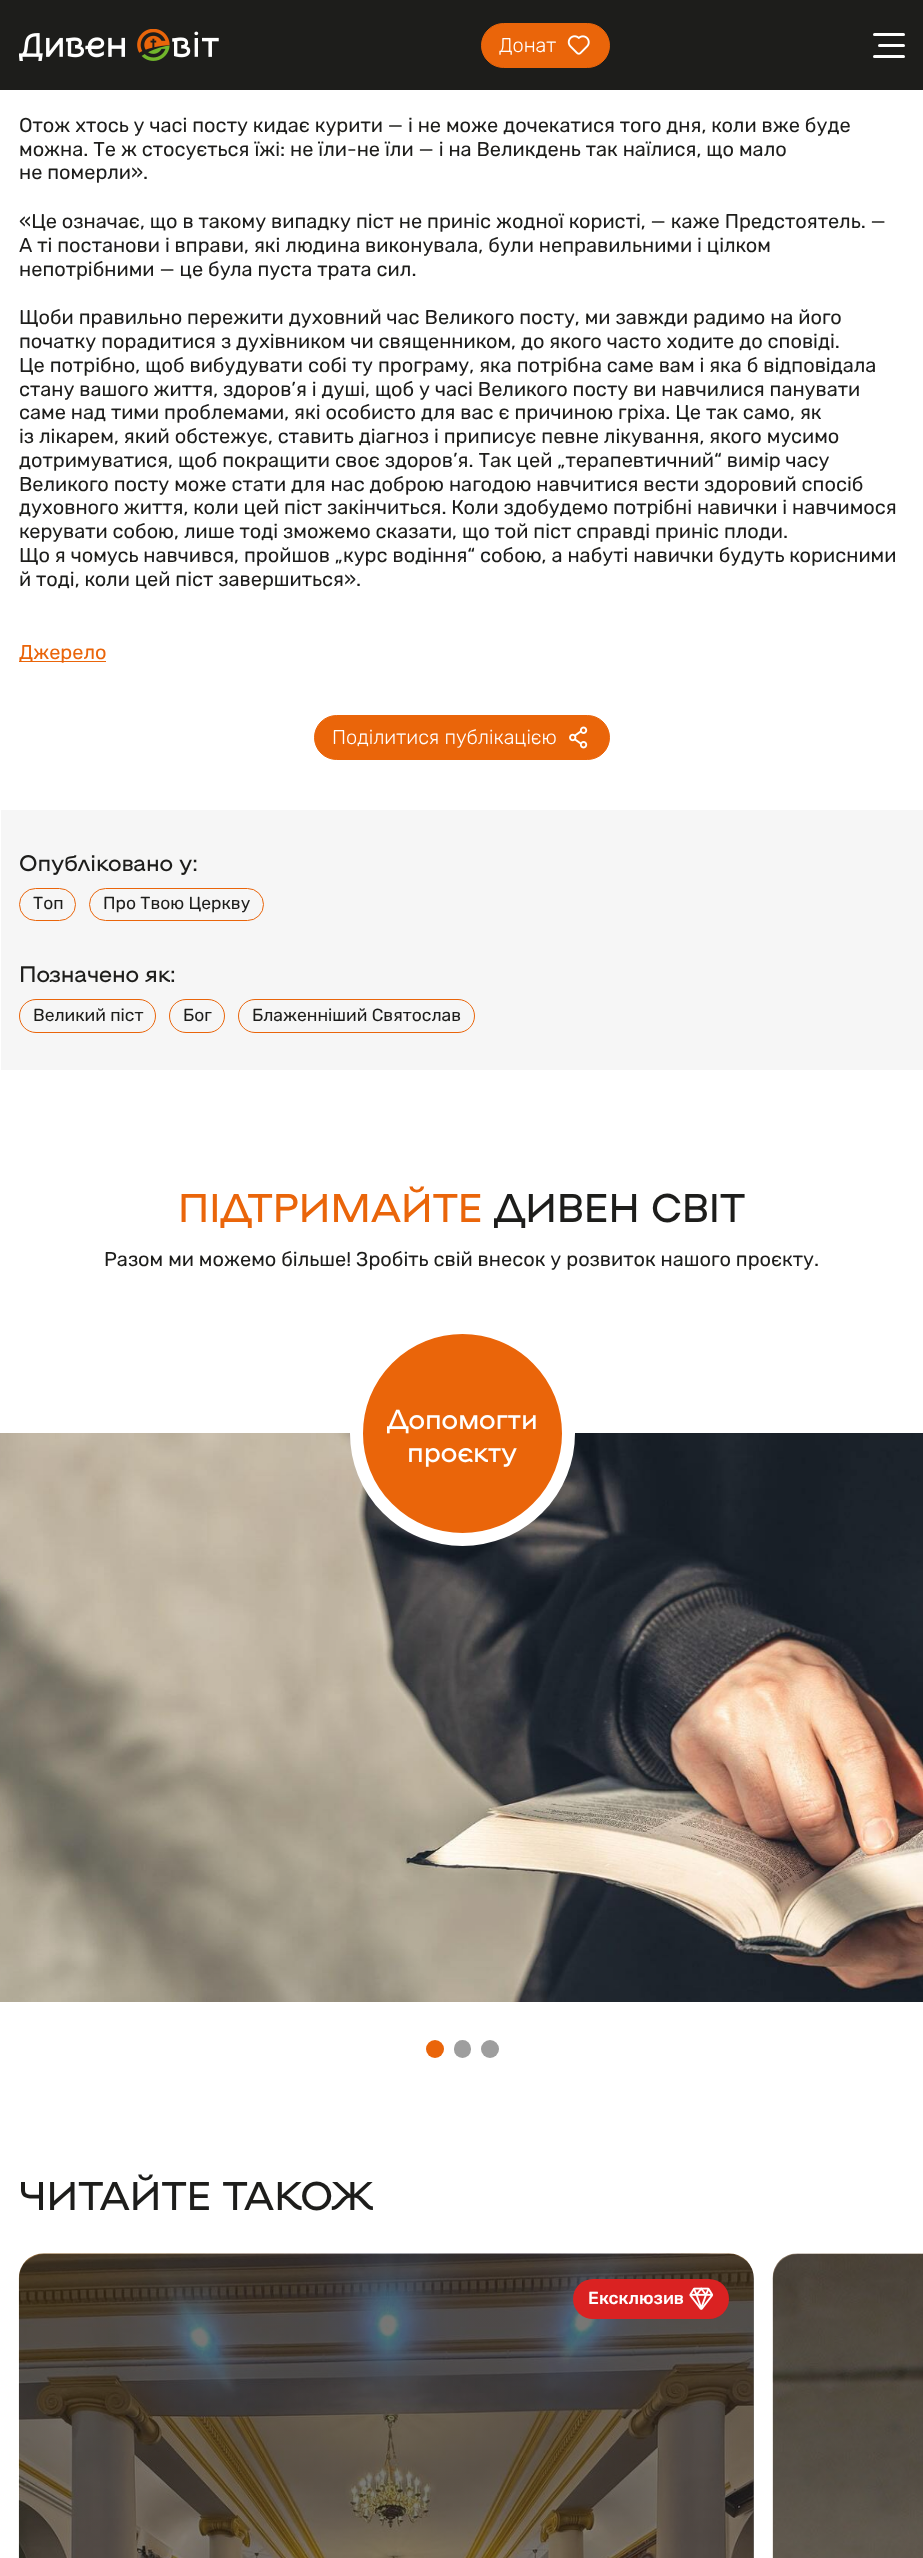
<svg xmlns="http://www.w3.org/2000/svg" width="923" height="2558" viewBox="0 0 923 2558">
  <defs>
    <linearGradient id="g1" gradientUnits="userSpaceOnUse" x1="386" y1="2254" x2="386" y2="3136"><stop offset="0" stop-color="rgb(29,29,27)" stop-opacity="0.6"/><stop offset="0.24" stop-color="rgb(29,29,27)" stop-opacity="0.6"/><stop offset="1" stop-color="rgb(29,29,27)" stop-opacity="0.2"/></linearGradient>
    <linearGradient id="g2" gradientUnits="userSpaceOnUse" x1="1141" y1="2254" x2="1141" y2="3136"><stop offset="0" stop-color="rgb(29,29,27)" stop-opacity="0.6"/><stop offset="0.24" stop-color="rgb(29,29,27)" stop-opacity="0.6"/><stop offset="1" stop-color="rgb(29,29,27)" stop-opacity="0.2"/></linearGradient>
  </defs>
  <rect width="100%" height="100%" fill="rgb(255,255,255)"/>
  <rect x="0" y="0" width="923" height="90" fill="rgb(29,29,27)"/>
  <image x="19" y="29" width="200" height="32" href="pic1.png"/>
  <rect x="481.5" y="23.5" width="128" height="44" rx="22" fill="rgb(234,101,10)" stroke="rgb(234,101,10)"/>
  <text x="499" y="52" font-family="Rubik" font-size="20" font-weight="300" fill="rgb(255,255,255)">Донат</text>
  <image x="567" y="35" width="23" height="20" href="pic2.png"/>
  <rect x="873" y="33" width="32" height="3" rx="1.5" fill="rgb(255,255,255)"/>
  <rect x="878" y="44" width="27" height="3" rx="1.5" fill="rgb(255,255,255)"/>
  <rect x="873" y="55" width="32" height="3" rx="1.5" fill="rgb(255,255,255)"/>
  <g font-family="Rubik" font-size="20" fill="rgb(29,29,27)">
    <text>
      <tspan x="19" y="132">Отож хтось у часі посту кидає курити — і не може дочекатися того дня, коли вже буде</tspan>
      <tspan x="19" y="156">можна. Те ж стосується їжі: не їли-не їли — і на Великдень так наїлися, що мало</tspan>
      <tspan x="19" y="179">не померли».</tspan>
    </text>
    <text>
      <tspan x="19" y="228">«Це означає, що в такому випадку піст не приніс жодної користі, — каже Предстоятель. —</tspan>
      <tspan x="19" y="252">А ті постанови і вправи, які людина виконувала, були неправильними і цілком</tspan>
      <tspan x="19" y="276">непотрібними — це була пуста трата сил.</tspan>
    </text>
    <text>
      <tspan x="19" y="324">Щоби правильно пережити духовний час Великого посту, ми завжди радимо на його</tspan>
      <tspan x="19" y="348">початку порадитися з духівником чи священником, до якого часто ходите до сповіді.</tspan>
      <tspan x="19" y="372">Це потрібно, щоб вибудувати собі ту програму, яка потрібна саме вам і яка б відповідала</tspan>
      <tspan x="19" y="396">стану вашого життя, здоров’я і душі, щоб у часі Великого посту ви навчилися панувати</tspan>
      <tspan x="19" y="419">саме над тими проблемами, які особисто для вас є причиною гріха. Це так само, як</tspan>
      <tspan x="19" y="443">із лікарем, який обстежує, ставить діагноз і приписує певне лікування, якого мусимо</tspan>
      <tspan x="19" y="467">дотримуватися, щоб покращити своє здоров’я. Так цей „терапевтичний“ вимір часу</tspan>
      <tspan x="19" y="491">Великого посту може стати для нас доброю нагодою навчитися вести здоровий спосіб</tspan>
      <tspan x="19" y="514">духовного життя, коли цей піст закінчиться. Коли здобудемо потрібні навички і навчимося</tspan>
      <tspan x="19" y="538">керувати собою, лише тоді зможемо сказати, що той піст справді приніс плоди.</tspan>
      <tspan x="19" y="562">Що я чомусь навчився, пройшов „курс водіння“ собою, а набуті навички будуть корисними</tspan>
      <tspan x="19" y="586">й тоді, коли цей піст завершиться».</tspan>
    </text>
  </g>
  <rect x="19" y="661" width="87" height="1" fill="rgb(234,101,10)"/>
  <text x="19" y="659" font-family="Rubik" font-size="20" fill="rgb(234,101,10)">Джерело</text>
  <rect x="314.5" y="715.5" width="295" height="44" rx="22" fill="rgb(234,101,10)" stroke="rgb(234,101,10)"/>
  <text x="332" y="744" font-family="Rubik" font-size="20" font-weight="300" fill="rgb(255,255,255)">Поділитися публікацією</text>
  <image x="569" y="726" width="19" height="23" href="pic3.png"/>
  <rect x="1" y="810" width="922" height="260" fill="rgb(246,246,246)"/>
  <text x="19" y="871" font-family="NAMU" font-size="22.5" font-weight="300" fill="rgb(29,29,27)">Опубліковано у:</text>
  <rect x="19.5" y="888.5" width="56" height="32" rx="16" fill="none" stroke="rgb(234,101,10)"/>
  <text x="33" y="909" font-family="Rubik" font-size="17.5" fill="rgb(29,29,27)">Топ</text>
  <rect x="89.5" y="888.5" width="174" height="32" rx="16" fill="none" stroke="rgb(234,101,10)"/>
  <text x="103" y="909" font-family="Rubik" font-size="17.5" fill="rgb(29,29,27)">Про Твою Церкву</text>
  <text x="19" y="982" font-family="NAMU" font-size="22.5" font-weight="300" fill="rgb(29,29,27)">Позначено як:</text>
  <rect x="19.5" y="999.5" width="136" height="33" rx="16.5" fill="none" stroke="rgb(234,101,10)"/>
  <text x="33" y="1021" font-family="Rubik" font-size="17.5" fill="rgb(29,29,27)">Великий піст</text>
  <rect x="169.5" y="999.5" width="55" height="33" rx="16.5" fill="none" stroke="rgb(234,101,10)"/>
  <text x="183" y="1021" font-family="Rubik" font-size="17.5" fill="rgb(29,29,27)">Бог</text>
  <rect x="238.5" y="999.5" width="236" height="33" rx="16.5" fill="none" stroke="rgb(234,101,10)"/>
  <text x="252" y="1021" font-family="Rubik" font-size="17.5" fill="rgb(29,29,27)">Блаженніший Святослав</text>
  <text x="178" y="1222" font-family="NAMU" font-size="40" font-weight="300" fill="rgb(234,101,10)">ПІДТРИМАЙТЕ</text>
  <text x="494" y="1222" font-family="NAMU" font-size="40" font-weight="300" fill="rgb(29,29,27)">ДИВЕН СВІТ</text>
  <text x="104" y="1266" font-family="Rubik" font-size="20" fill="rgb(29,29,27)">Разом ми можемо більше! Зробіть свій внесок у розвиток нашого проєкту.</text>
  <image x="0" y="1433" width="923" height="569" href="pic4.png"/>
  <circle cx="462.5" cy="1433.5" r="106" fill="rgb(234,101,10)" stroke="rgb(255,255,255)" stroke-width="13"/>
  <g font-family="NAMU" font-size="27.5" font-weight="300" fill="rgb(255,255,255)">
    <text x="387" y="1429">Допомогти</text>
    <text x="407" y="1462">проєкту</text>
  </g>
  <circle cx="435" cy="2049" r="9" fill="rgb(234,101,10)"/>
  <rect x="454" y="2040" width="17" height="18" rx="8.5" fill="rgb(158,158,158)"/>
  <circle cx="490" cy="2049" r="9" fill="rgb(158,158,158)"/>
  <text x="19" y="2210" font-family="NAMU" font-size="40" font-weight="300" fill="rgb(29,29,27)">ЧИТАЙТЕ ТАКОЖ</text>
  <image x="18" y="2253" width="736" height="305" href="pic5.png"/>
  <rect x="19" y="2254" width="735" height="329" rx="25" fill="url(#g1)"/>
  <rect x="573" y="2279" width="156" height="40" rx="20" fill="rgb(218,34,34)"/>
  <text x="588" y="2304" font-family="Rubik" font-size="17.5" font-weight="500" fill="rgb(255,255,255)">Ексклюзив</text>
  <image x="689" y="2287" width="25" height="23" href="pic6.png"/>
  <image x="772" y="2253" width="151" height="305" href="pic7.png"/>
  <path d="M798 2254H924V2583H798C784 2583 773 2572 773 2558V2279C773 2265 784 2254 798 2254Z" fill="url(#g2)"/>
</svg>
